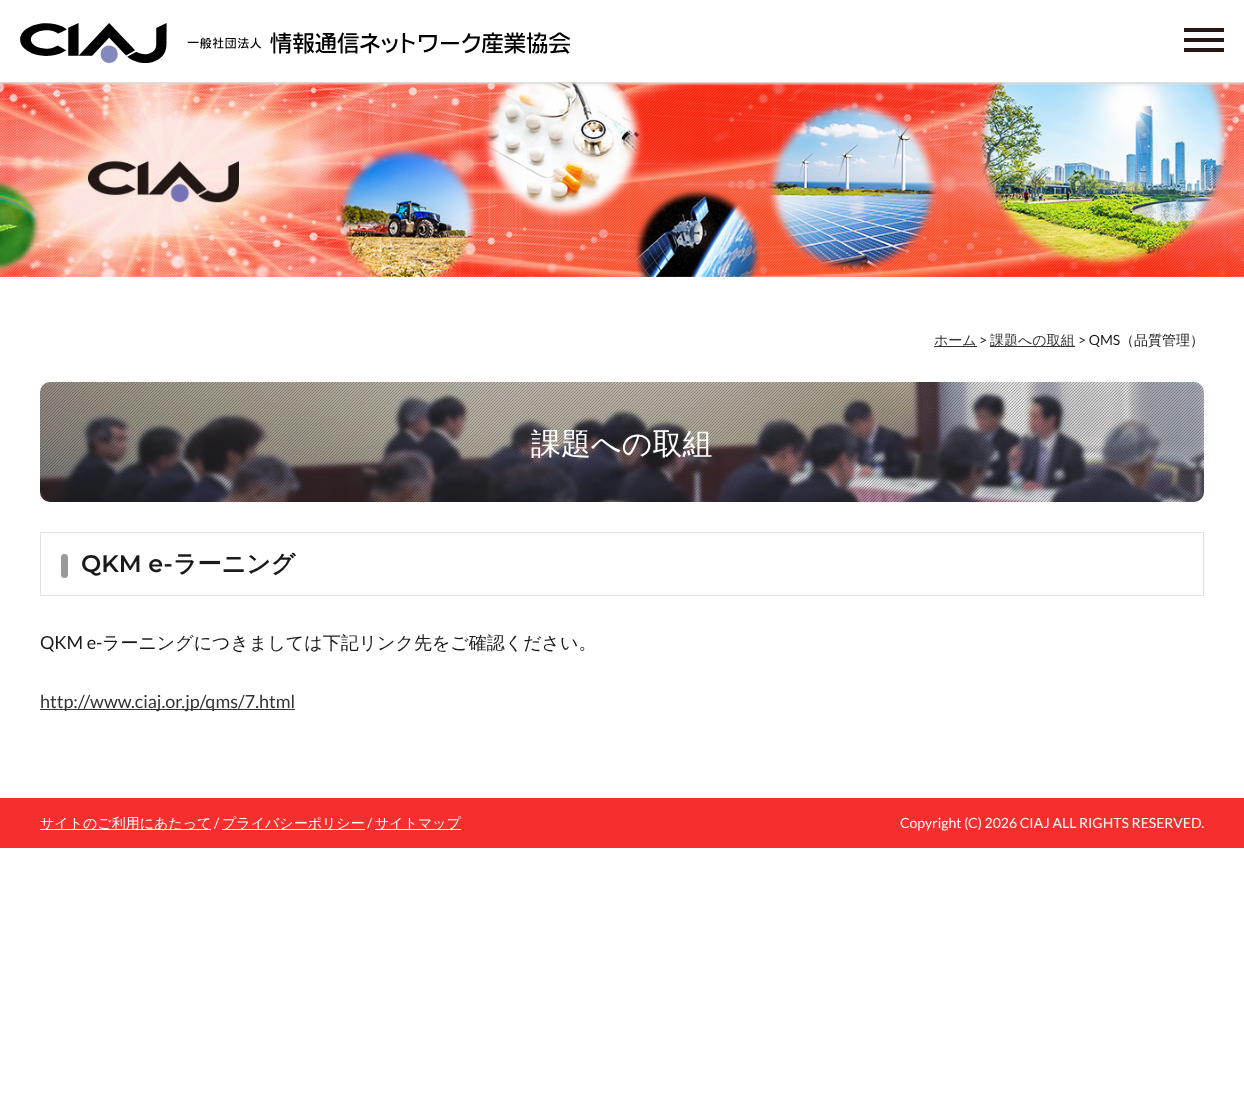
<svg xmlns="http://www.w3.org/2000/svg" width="1244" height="1102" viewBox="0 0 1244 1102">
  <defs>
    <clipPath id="clip1"><rect x="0" y="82" width="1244" height="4"/></clipPath>
  </defs>
  <rect width="100%" height="100%" fill="rgb(255,255,255)"/>
  <image x="0" y="82" width="1244" height="195" href="pic2.png"/>
  <g clip-path="url(#clip1)">
    <rect x="0" y="2" width="1244" height="82" fill="rgb(221,221,221)" filter="blur(1px)"/>
  </g>
  <image x="20" y="23" width="550" height="40" href="pic1.png"/>
  <rect x="1184" y="28" width="40" height="4" fill="rgb(35,24,21)"/>
  <rect x="1184" y="38" width="40" height="4" fill="rgb(35,24,21)"/>
  <rect x="1184" y="48" width="40" height="4" fill="rgb(35,24,21)"/>
  <rect x="934" y="346" width="43" height="1" fill="rgb(51,51,51)"/>
  <text x="934" y="345" font-family="WenQuanYi Zen Hei" font-size="14" font-weight="500" fill="rgb(51,51,51)">ホーム</text>
  <text x="979" y="345" font-family="Lato" font-size="14" fill="rgb(26,26,26)">&gt;</text>
  <rect x="990" y="346" width="85" height="1" fill="rgb(51,51,51)"/>
  <text x="990" y="345" font-family="WenQuanYi Zen Hei" font-size="14" font-weight="500" fill="rgb(51,51,51)">課題への取組</text>
  <text x="1078" y="345" font-family="Lato" font-size="14" fill="rgb(26,26,26)">&gt; QMS</text>
  <text x="1120" y="345" font-family="WenQuanYi Zen Hei" font-size="14" font-weight="500" fill="rgb(26,26,26)">（品質管理）</text>
  <image x="40" y="382" width="1164" height="120" href="pic3.png"/>
  <text x="531" y="454" font-family="WenQuanYi Zen Hei" font-size="30" font-weight="500" fill="rgb(255,255,255)">課題への取組</text>
  <rect x="40.5" y="532.5" width="1163" height="63" fill="none" stroke="rgb(225,225,225)"/>
  <rect x="61" y="554" width="7" height="24" rx="3.5" fill="rgb(154,154,154)"/>
  <text x="81" y="572" font-family="Montserrat" font-size="24" font-weight="600" fill="rgb(26,26,26)">QKM e-</text>
  <text x="173" y="572" font-family="WenQuanYi Zen Hei" font-size="24" font-weight="bold" fill="rgb(26,26,26)">ラーニング</text>
  <text x="40" y="649" font-family="Lato" font-size="18" fill="rgb(26,26,26)">QKM e-</text>
  <text x="102" y="649" font-family="WenQuanYi Zen Hei" font-size="18" font-weight="500" fill="rgb(26,26,26)">ラーニングにつきましては下記リンク先をご確認ください。</text>
  <rect x="40" y="709" width="255" height="1" fill="rgb(51,51,51)"/>
  <text x="40" y="708" font-family="Lato" font-size="18" fill="rgb(51,51,51)">http://www.ciaj.or.jp/qms/7.html</text>
  <rect x="0" y="798" width="1244" height="50" fill="rgb(247,46,46)"/>
  <rect x="40" y="829" width="171" height="1" fill="rgb(255,255,255)"/>
  <text x="40" y="828" font-family="WenQuanYi Zen Hei" font-size="14" font-weight="500" fill="rgb(255,255,255)">サイトのご利用にあたって</text>
  <text x="214" y="828" font-family="Lato" font-size="14" fill="rgb(255,255,255)">/</text>
  <rect x="222" y="829" width="143" height="1" fill="rgb(255,255,255)"/>
  <text x="222" y="828" font-family="WenQuanYi Zen Hei" font-size="14" font-weight="500" fill="rgb(255,255,255)">プライバシーポリシー</text>
  <text x="367" y="828" font-family="Lato" font-size="14" fill="rgb(255,255,255)">/</text>
  <rect x="375" y="829" width="86" height="1" fill="rgb(255,255,255)"/>
  <text x="375" y="828" font-family="WenQuanYi Zen Hei" font-size="14" font-weight="500" fill="rgb(255,255,255)">サイトマップ</text>
  <text x="900" y="828" font-family="Lato" font-size="14" fill="rgb(255,255,255)">Copyright (C) 2026 CIAJ ALL RIGHTS RESERVED.</text>
</svg>
